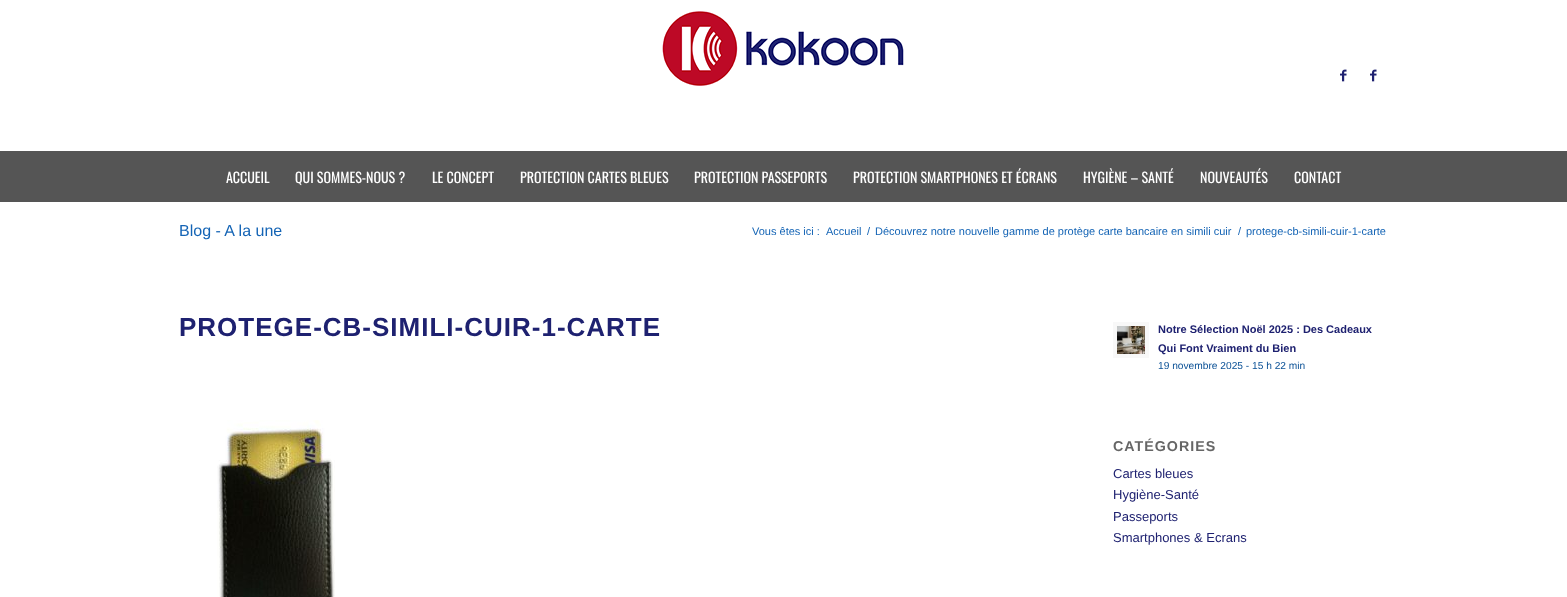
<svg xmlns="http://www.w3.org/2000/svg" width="1567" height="597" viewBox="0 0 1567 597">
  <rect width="100%" height="100%" fill="rgb(255,255,255)"/>
  <image x="662" y="11" width="242" height="75" href="pic1.png"/>
  <image x="1340" y="69" width="7" height="13" href="pic2.png"/>
  <image x="1370" y="69" width="7" height="13" href="pic2.png"/>
  <rect x="0" y="151" width="1567" height="51" fill="rgb(85,85,85)"/>
  <g font-family="Oswald" font-size="14" fill="rgb(255,255,255)">
    <text x="226" y="183">ACCUEIL</text>
    <text x="295" y="183">QUI SOMMES-NOUS ?</text>
    <text x="432" y="183">LE CONCEPT</text>
    <text x="520" y="183">PROTECTION CARTES BLEUES</text>
    <text x="694" y="183">PROTECTION PASSEPORTS</text>
    <text x="853" y="183">PROTECTION SMARTPHONES ET ÉCRANS</text>
    <text x="1083" y="183">HYGIÈNE – SANTÉ</text>
    <text x="1200" y="183">NOUVEAUTÉS</text>
    <text x="1294" y="183">CONTACT</text>
  </g>
  <text x="179" y="236" font-family="Liberation Sans" font-size="16" fill="rgb(20,100,181)">Blog - A la une</text>
  <g font-family="Liberation Sans" font-size="11" fill="rgb(20,100,181)">
    <text x="752" y="235">Vous êtes ici :</text>
    <text x="826" y="235">Accueil</text>
    <text x="867" y="235">/</text>
    <text x="875" y="235">Découvrez notre nouvelle gamme de protège carte bancaire en simili cuir</text>
    <text x="1238" y="235">/</text>
    <text x="1246" y="235">protege-cb-simili-cuir-1-carte</text>
  </g>
  <text x="179" y="336" font-family="Liberation Sans" font-size="26" font-weight="bold" letter-spacing="1" fill="rgb(30,33,112)">PROTEGE-CB-SIMILI-CUIR-1-CARTE</text>
  <image x="217" y="420" width="118" height="177" href="pic3.png"/>
  <rect x="1113" y="322" width="36" height="36" fill="rgb(248,248,248)"/>
  <image x="1117" y="326" width="28" height="28" href="pic4.png"/>
  <g font-family="Liberation Sans" font-size="11" font-weight="bold" fill="rgb(30,33,112)">
    <text>
      <tspan x="1158" y="333">Notre Sélection Noël 2025 : Des Cadeaux</tspan>
      <tspan x="1158" y="352">Qui Font Vraiment du Bien</tspan>
    </text>
  </g>
  <text x="1158" y="369" font-family="Liberation Sans" font-size="10.2" fill="rgb(11,81,150)">19 novembre 2025 - 15 h 22 min</text>
  <text x="1113" y="451" font-family="Liberation Sans" font-size="14.25" font-weight="bold" letter-spacing="1" fill="rgb(102,102,102)">CATÉGORIES</text>
  <g font-family="Liberation Sans" font-size="13" fill="rgb(30,33,112)">
    <text>
      <tspan x="1113" y="478">Cartes bleues</tspan>
      <tspan x="1113" y="499">Hygiène-Santé</tspan>
      <tspan x="1113" y="521">Passeports</tspan>
      <tspan x="1113" y="542">Smartphones &amp; Ecrans</tspan>
    </text>
  </g>
</svg>
